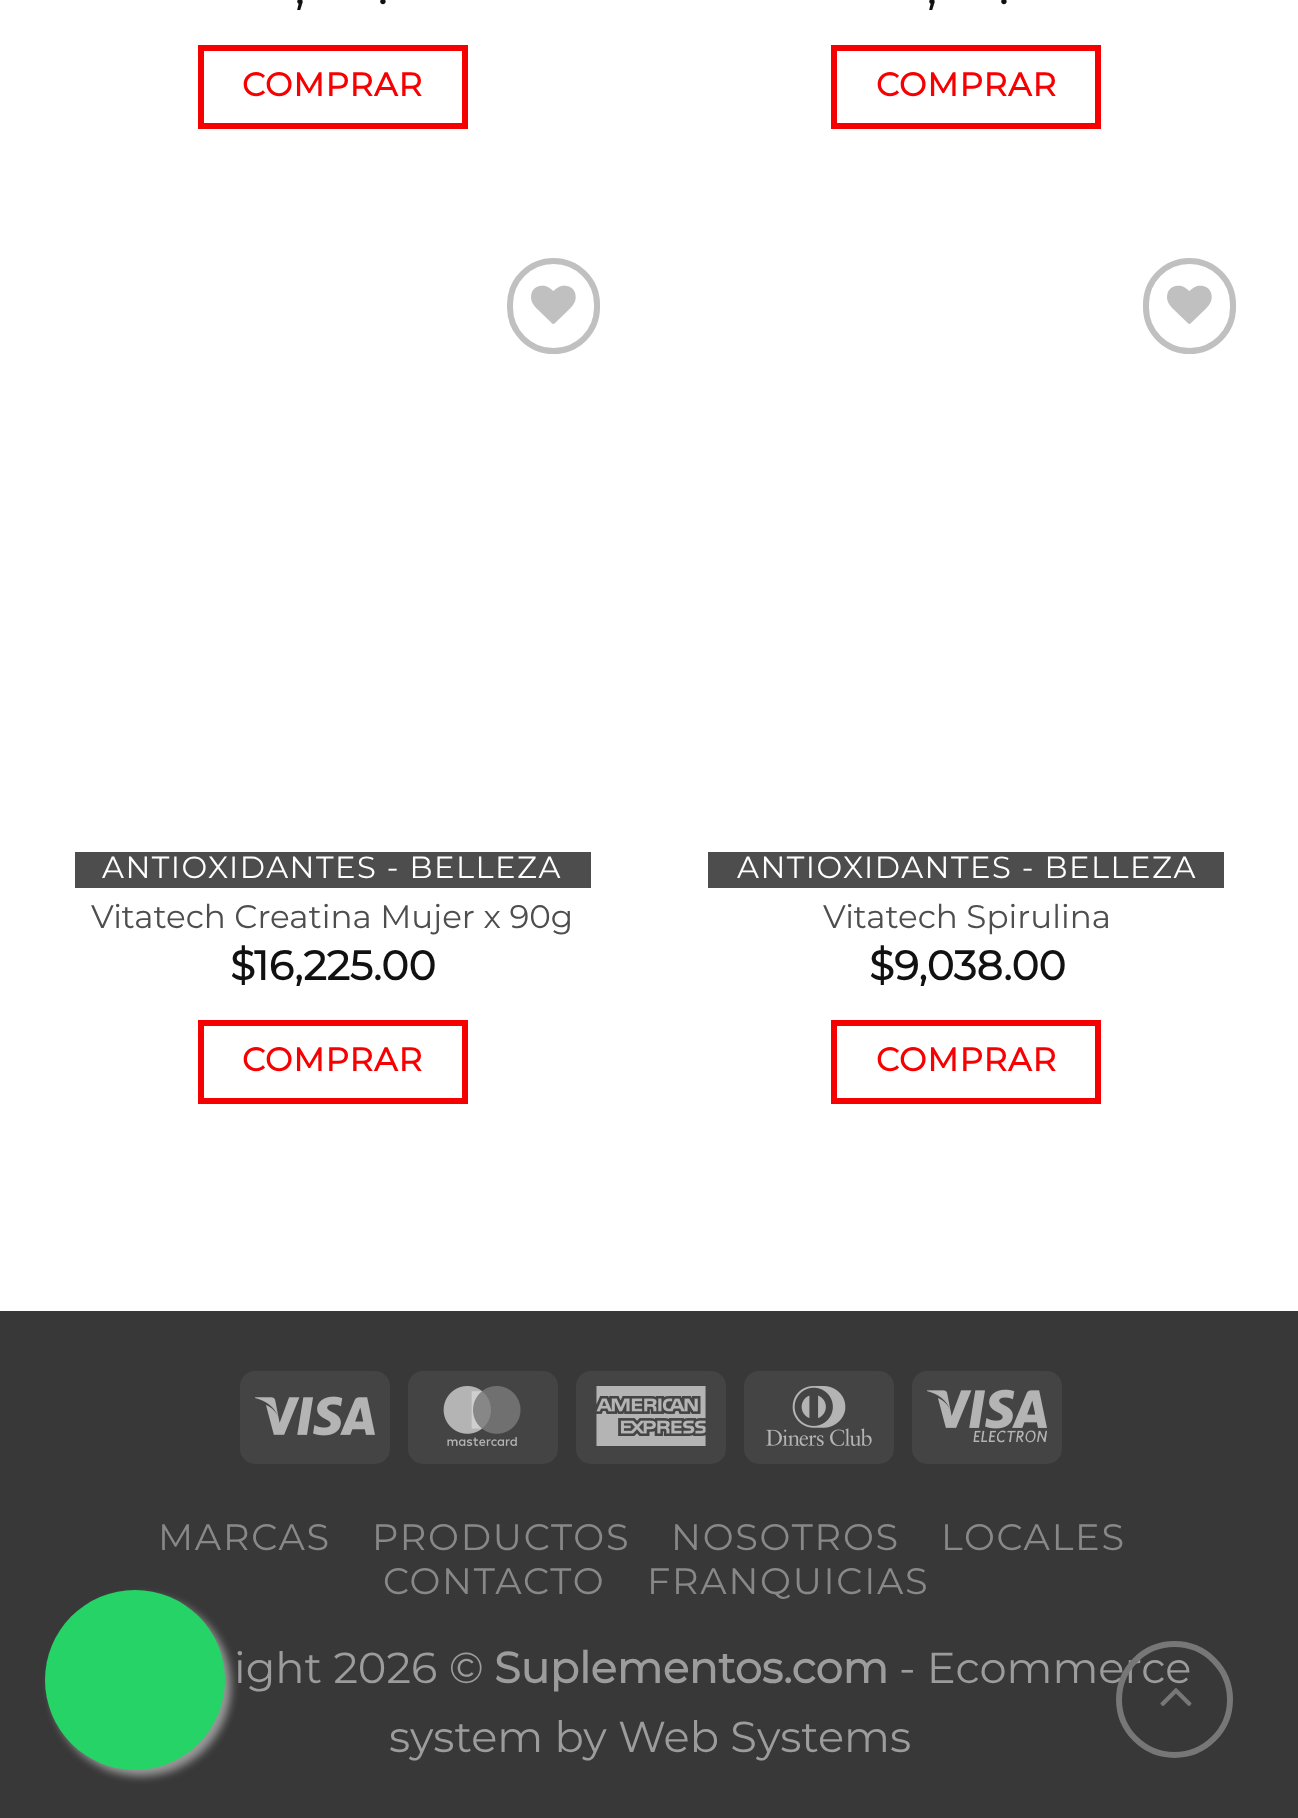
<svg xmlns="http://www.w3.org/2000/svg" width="1298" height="1818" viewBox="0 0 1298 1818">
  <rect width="100%" height="100%" fill="rgb(56,56,56)"/>
  <rect x="0" y="0" width="1298" height="1311" fill="rgb(255,255,255)"/>
  <g font-family="Montserrat" font-size="41" font-weight="bold" fill="rgb(17,17,17)">
    <text x="295" y="4">,</text>
    <text x="378" y="4">.</text>
  </g>
  <rect x="201" y="48" width="264" height="78" fill="none" stroke="rgb(247,0,2)" stroke-width="6"/>
  <text x="242" y="96" font-family="Montserrat" font-size="32.6" font-weight="bold" letter-spacing="1" fill="rgb(247,0,2)">COMPRAR</text>
  <g font-family="Montserrat" font-size="41" font-weight="bold" fill="rgb(17,17,17)">
    <text x="927" y="4">,</text>
    <text x="999" y="4">.</text>
  </g>
  <rect x="834" y="48" width="264" height="78" fill="none" stroke="rgb(247,0,2)" stroke-width="6"/>
  <text x="876" y="96" font-family="Montserrat" font-size="32.6" font-weight="bold" letter-spacing="1" fill="rgb(247,0,2)">COMPRAR</text>
  <rect x="510" y="261" width="87" height="90" rx="43.5" fill="none" stroke="rgb(192,192,192)" stroke-width="6"/>
  <image x="531" y="285" width="45" height="39" href="pic1.png"/>
  <rect x="75" y="852" width="516" height="36" fill="rgb(77,77,77)"/>
  <text x="102" y="878" font-family="Montserrat" font-size="30.6" font-weight="100" letter-spacing="1.5" fill="rgb(255,255,255)">ANTIOXIDANTES - BELLEZA</text>
  <text x="91" y="928" font-family="Montserrat" font-size="32.6" font-weight="100" fill="rgb(78,78,78)">Vitatech Creatina Mujer x 90g</text>
  <g font-family="Montserrat" font-size="41" font-weight="bold" fill="rgb(17,17,17)">
    <text x="230" y="980">$</text>
    <text x="254" y="980">16,225.00</text>
  </g>
  <rect x="201" y="1023" width="264" height="78" fill="none" stroke="rgb(247,0,2)" stroke-width="6"/>
  <text x="242" y="1071" font-family="Montserrat" font-size="32.6" font-weight="bold" letter-spacing="1" fill="rgb(247,0,2)">COMPRAR</text>
  <rect x="1146" y="261" width="87" height="90" rx="43.5" fill="none" stroke="rgb(192,192,192)" stroke-width="6"/>
  <image x="1167" y="285" width="45" height="39" href="pic1.png"/>
  <rect x="708" y="852" width="516" height="36" fill="rgb(77,77,77)"/>
  <text x="737" y="878" font-family="Montserrat" font-size="30.6" font-weight="100" letter-spacing="1.5" fill="rgb(255,255,255)">ANTIOXIDANTES - BELLEZA</text>
  <text x="823" y="928" font-family="Montserrat" font-size="32.6" font-weight="100" fill="rgb(78,78,78)">Vitatech Spirulina</text>
  <g font-family="Montserrat" font-size="41" font-weight="bold" fill="rgb(17,17,17)">
    <text x="869" y="980">$</text>
    <text x="894" y="980">9,038.00</text>
  </g>
  <rect x="834" y="1023" width="264" height="78" fill="none" stroke="rgb(247,0,2)" stroke-width="6"/>
  <text x="876" y="1071" font-family="Montserrat" font-size="32.6" font-weight="bold" letter-spacing="1" fill="rgb(247,0,2)">COMPRAR</text>
  <rect x="51" y="1596" width="180" height="180" rx="90" fill="rgb(153,153,153)" filter="blur(4.5px)"/>
  <circle cx="135" cy="1680" r="90" fill="rgb(37,211,102)"/>
  <rect x="240" y="1371" width="150" height="93" rx="15" fill="rgb(68,68,68)"/>
  <image x="255" y="1396" width="120" height="40" href="pic2.png"/>
  <rect x="408" y="1371" width="150" height="93" rx="15" fill="rgb(68,68,68)"/>
  <image x="443" y="1386" width="78" height="60" href="pic3.png"/>
  <rect x="576" y="1371" width="150" height="93" rx="15" fill="rgb(68,68,68)"/>
  <image x="596" y="1386" width="110" height="60" href="pic4.png"/>
  <rect x="744" y="1371" width="150" height="93" rx="15" fill="rgb(68,68,68)"/>
  <image x="766" y="1386" width="106" height="60" href="pic5.png"/>
  <rect x="912" y="1371" width="150" height="93" rx="15" fill="rgb(68,68,68)"/>
  <image x="927" y="1389" width="120" height="54" href="pic6.png"/>
  <g font-family="Montserrat" font-size="36.75" font-weight="100" letter-spacing="1.75" fill="rgb(136,136,136)">
    <text x="158" y="1550">MARCAS</text>
    <text x="372" y="1550">PRODUCTOS</text>
    <text x="671" y="1550">NOSOTROS</text>
    <text x="941" y="1550">LOCALES</text>
    <text x="383" y="1594">CONTACTO</text>
    <text x="647" y="1594">FRANQUICIAS</text>
  </g>
  <text x="234" y="1683" font-family="Montserrat" font-size="43.25" font-weight="100" fill="rgb(156,156,156)">ight 2026 ©</text>
  <text x="494" y="1683" font-family="Montserrat" font-size="43.25" font-weight="bold" fill="rgb(156,156,156)">Suplementos.com</text>
  <g font-family="Montserrat" font-size="43.25" font-weight="100" fill="rgb(156,156,156)">
    <text x="899" y="1683">- Ecommerce</text>
    <text x="389" y="1752">system by Web Systems</text>
  </g>
  <circle cx="1174.5" cy="1699.5" r="55.5" fill="none" stroke="rgb(119,119,119)" stroke-width="6"/>
  <image x="1160" y="1688" width="32" height="18" href="pic7.png"/>
</svg>
